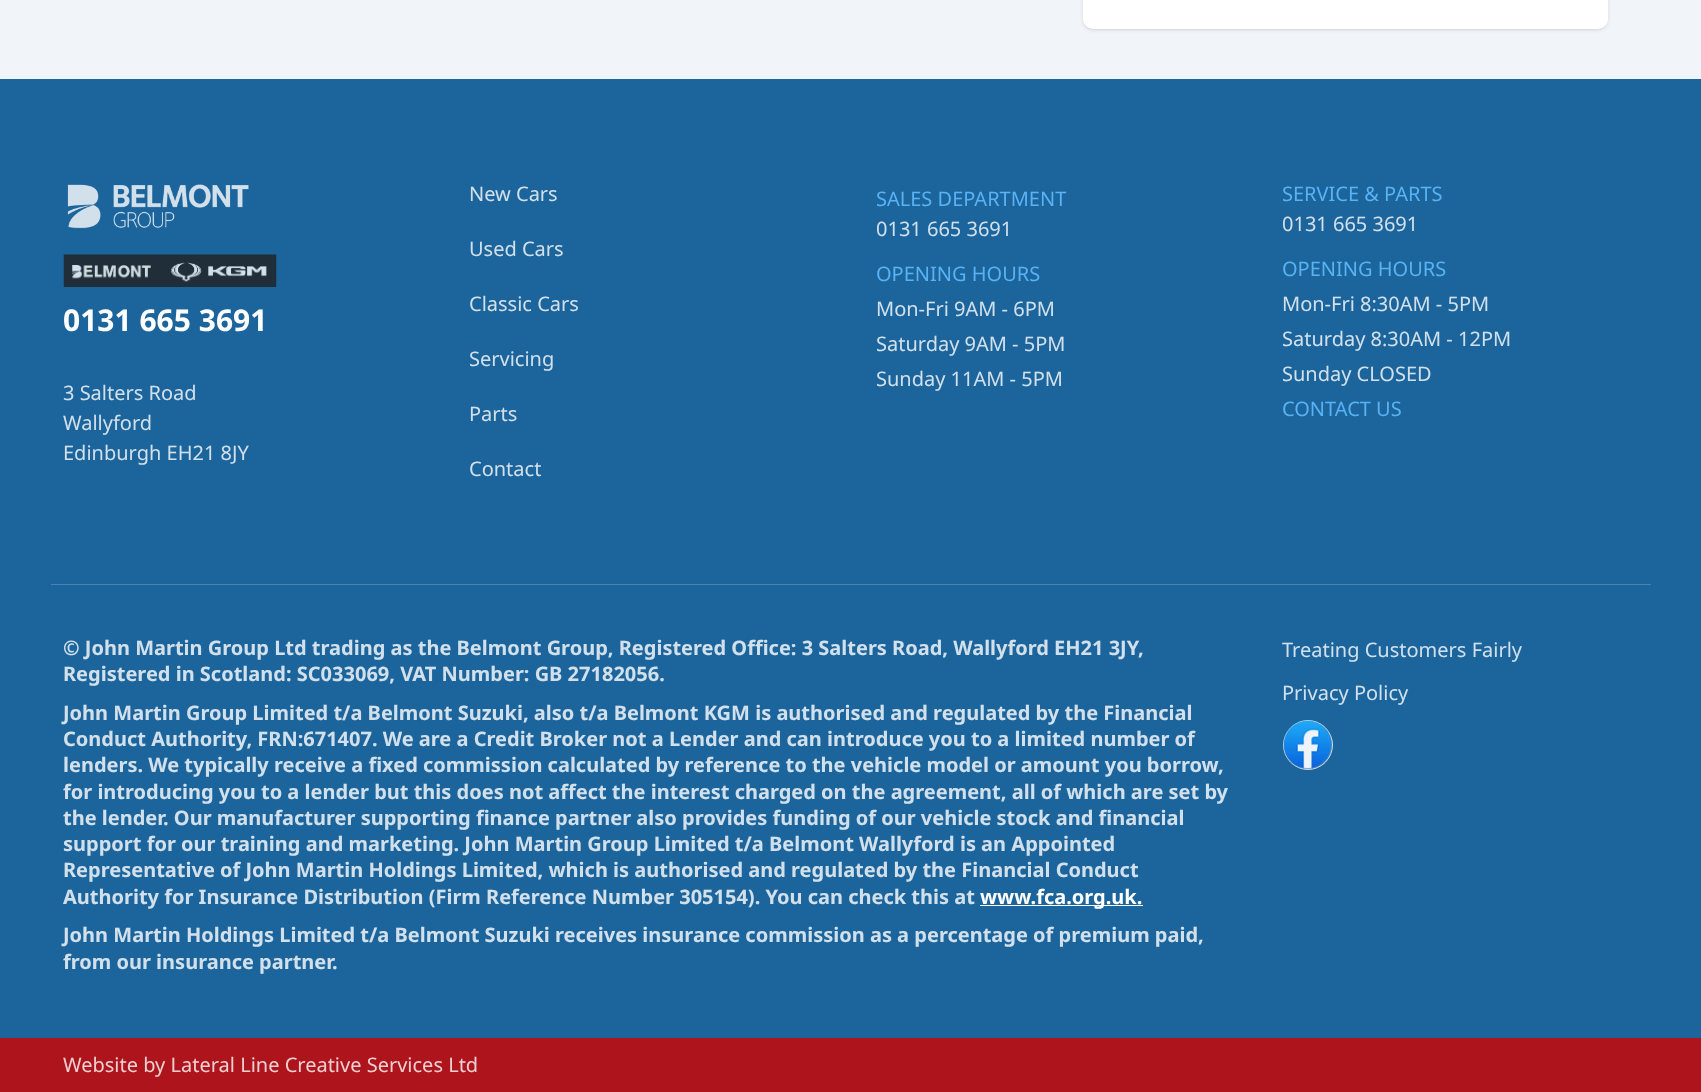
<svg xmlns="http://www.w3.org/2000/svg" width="1701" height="1092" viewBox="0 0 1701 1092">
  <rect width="100%" height="100%" fill="rgb(241,245,249)"/>
  <rect x="1084" y="-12" width="522" height="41" rx="9" fill="rgba(0,0,0,0.1)" filter="blur(1px)"/>
  <rect x="1083" y="-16" width="525" height="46" rx="10" fill="rgba(0,0,0,0.1)" filter="blur(2px)"/>
  <rect x="1083" y="-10" width="525" height="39" rx="10" fill="rgb(255,255,255)"/>
  <rect x="0" y="79" width="1701" height="959" fill="rgb(28,101,156)"/>
  <image x="67" y="184" width="182" height="45" href="pic1.png"/>
  <image x="63" y="254" width="214" height="33" href="pic2.png"/>
  <text x="63" y="331" font-family="Noto Sans" font-size="30" font-weight="bold" fill="rgb(255,255,255)">0131 665 3691</text>
  <g font-family="Noto Sans" font-size="20" fill="rgb(210,224,235)">
    <text>
      <tspan x="63" y="400">3 Salters Road</tspan>
      <tspan x="63" y="430">Wallyford</tspan>
      <tspan x="63" y="460">Edinburgh EH21 8JY</tspan>
    </text>
    <text x="469" y="201">New Cars</text>
    <text x="469" y="256">Used Cars</text>
    <text x="469" y="311">Classic Cars</text>
    <text x="469" y="366">Servicing</text>
    <text x="469" y="421">Parts</text>
    <text x="469" y="476">Contact</text>
  </g>
  <text x="876" y="206" font-family="Noto Sans" font-size="20" fill="rgb(89,178,244)">SALES DEPARTMENT</text>
  <text x="876" y="236" font-family="Noto Sans" font-size="20" fill="rgb(210,224,235)">0131 665 3691</text>
  <text x="876" y="281" font-family="Noto Sans" font-size="20" fill="rgb(89,178,244)">OPENING HOURS</text>
  <g font-family="Noto Sans" font-size="20" fill="rgb(210,224,235)">
    <text>
      <tspan x="876" y="316">Mon-Fri 9AM - 6PM</tspan>
      <tspan x="876" y="351">Saturday 9AM - 5PM</tspan>
      <tspan x="876" y="386">Sunday 11AM - 5PM</tspan>
    </text>
  </g>
  <text x="1282" y="201" font-family="Noto Sans" font-size="20" fill="rgb(89,178,244)">SERVICE &amp; PARTS</text>
  <text x="1282" y="231" font-family="Noto Sans" font-size="20" fill="rgb(210,224,235)">0131 665 3691</text>
  <text x="1282" y="276" font-family="Noto Sans" font-size="20" fill="rgb(89,178,244)">OPENING HOURS</text>
  <g font-family="Noto Sans" font-size="20" fill="rgb(210,224,235)">
    <text>
      <tspan x="1282" y="311">Mon-Fri 8:30AM - 5PM</tspan>
      <tspan x="1282" y="346">Saturday 8:30AM - 12PM</tspan>
      <tspan x="1282" y="381">Sunday CLOSED</tspan>
    </text>
  </g>
  <text x="1282" y="416" font-family="Noto Sans" font-size="20" fill="rgb(89,178,244)">CONTACT US</text>
  <rect x="51" y="584" width="1600" height="1" fill="rgb(73,132,176)"/>
  <g font-family="Noto Sans" font-size="20" font-weight="bold" fill="rgb(210,224,235)">
    <text>
      <tspan x="63" y="655">© John Martin Group Ltd trading as the Belmont Group, Registered Office: 3 Salters Road, Wallyford EH21 3JY,</tspan>
      <tspan x="63" y="681">Registered in Scotland: SC033069, VAT Number: GB 27182056.</tspan>
      <tspan x="63" y="720">John Martin Group Limited t/a Belmont Suzuki, also t/a Belmont KGM is authorised and regulated by the Financial</tspan>
      <tspan x="63" y="746">Conduct Authority, FRN:671407. We are a Credit Broker not a Lender and can introduce you to a limited number of</tspan>
      <tspan x="63" y="772">lenders. We typically receive a fixed commission calculated by reference to the vehicle model or amount you borrow,</tspan>
      <tspan x="63" y="799">for introducing you to a lender but this does not affect the interest charged on the agreement, all of which are set by</tspan>
      <tspan x="63" y="825">the lender. Our manufacturer supporting finance partner also provides funding of our vehicle stock and financial</tspan>
      <tspan x="63" y="851">support for our training and marketing. John Martin Group Limited t/a Belmont Wallyford is an Appointed</tspan>
      <tspan x="63" y="877">Representative of John Martin Holdings Limited, which is authorised and regulated by the Financial Conduct</tspan>
      <tspan x="63" y="904">Authority for Insurance Distribution (Firm Reference Number 305154). You can check this at</tspan>
    </text>
  </g>
  <rect x="980" y="905" width="163" height="1" fill="rgb(255,255,255)"/>
  <text x="980" y="904" font-family="Noto Sans" font-size="20" font-weight="bold" fill="rgb(255,255,255)">www.fca.org.uk.</text>
  <g font-family="Noto Sans" font-size="20" font-weight="bold" fill="rgb(210,224,235)">
    <text>
      <tspan x="63" y="942">John Martin Holdings Limited t/a Belmont Suzuki receives insurance commission as a percentage of premium paid,</tspan>
      <tspan x="63" y="969">from our insurance partner.</tspan>
    </text>
  </g>
  <g font-family="Noto Sans" font-size="20" fill="rgb(210,224,235)">
    <text x="1282" y="657">Treating Customers Fairly</text>
    <text x="1282" y="700">Privacy Policy</text>
  </g>
  <circle cx="1308" cy="745" r="24.5" fill="rgb(89,143,183)" stroke="rgb(209,218,227)"/>
  <image x="1283" y="720" width="49" height="49" href="pic3.png"/>
  <rect x="0" y="1038" width="1701" height="54" fill="rgb(174,20,28)"/>
  <text x="63" y="1072" font-family="Noto Sans" font-size="20" fill="rgb(239,208,210)">Website by Lateral Line Creative Services Ltd</text>
</svg>
